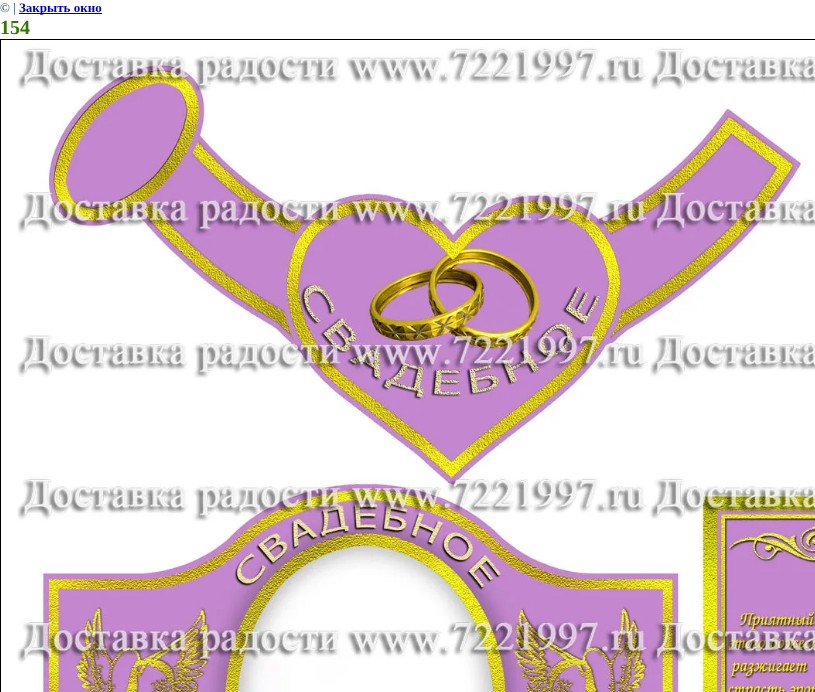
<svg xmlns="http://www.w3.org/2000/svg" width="815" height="692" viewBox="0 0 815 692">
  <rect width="100%" height="100%" fill="rgb(255,255,255)"/>
  <text x="0" y="12" font-family="Liberation Serif" font-size="13" fill="rgb(11,63,88)">© |</text>
  <rect x="19" y="13" width="83" height="1" fill="rgb(0,0,204)"/>
  <text x="19" y="12" font-family="Liberation Serif" font-size="13" font-weight="bold" fill="rgb(0,0,204)">Закрыть окно</text>
  <text x="0" y="34" font-family="Liberation Serif" font-size="20" font-weight="bold" fill="rgb(51,120,2)">154</text>
  <rect x="0.5" y="39.5" width="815" height="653" fill="none" stroke="rgb(0,0,0)"/>
  <image x="17" y="47" width="798" height="645" href="pic1.png"/>
</svg>
